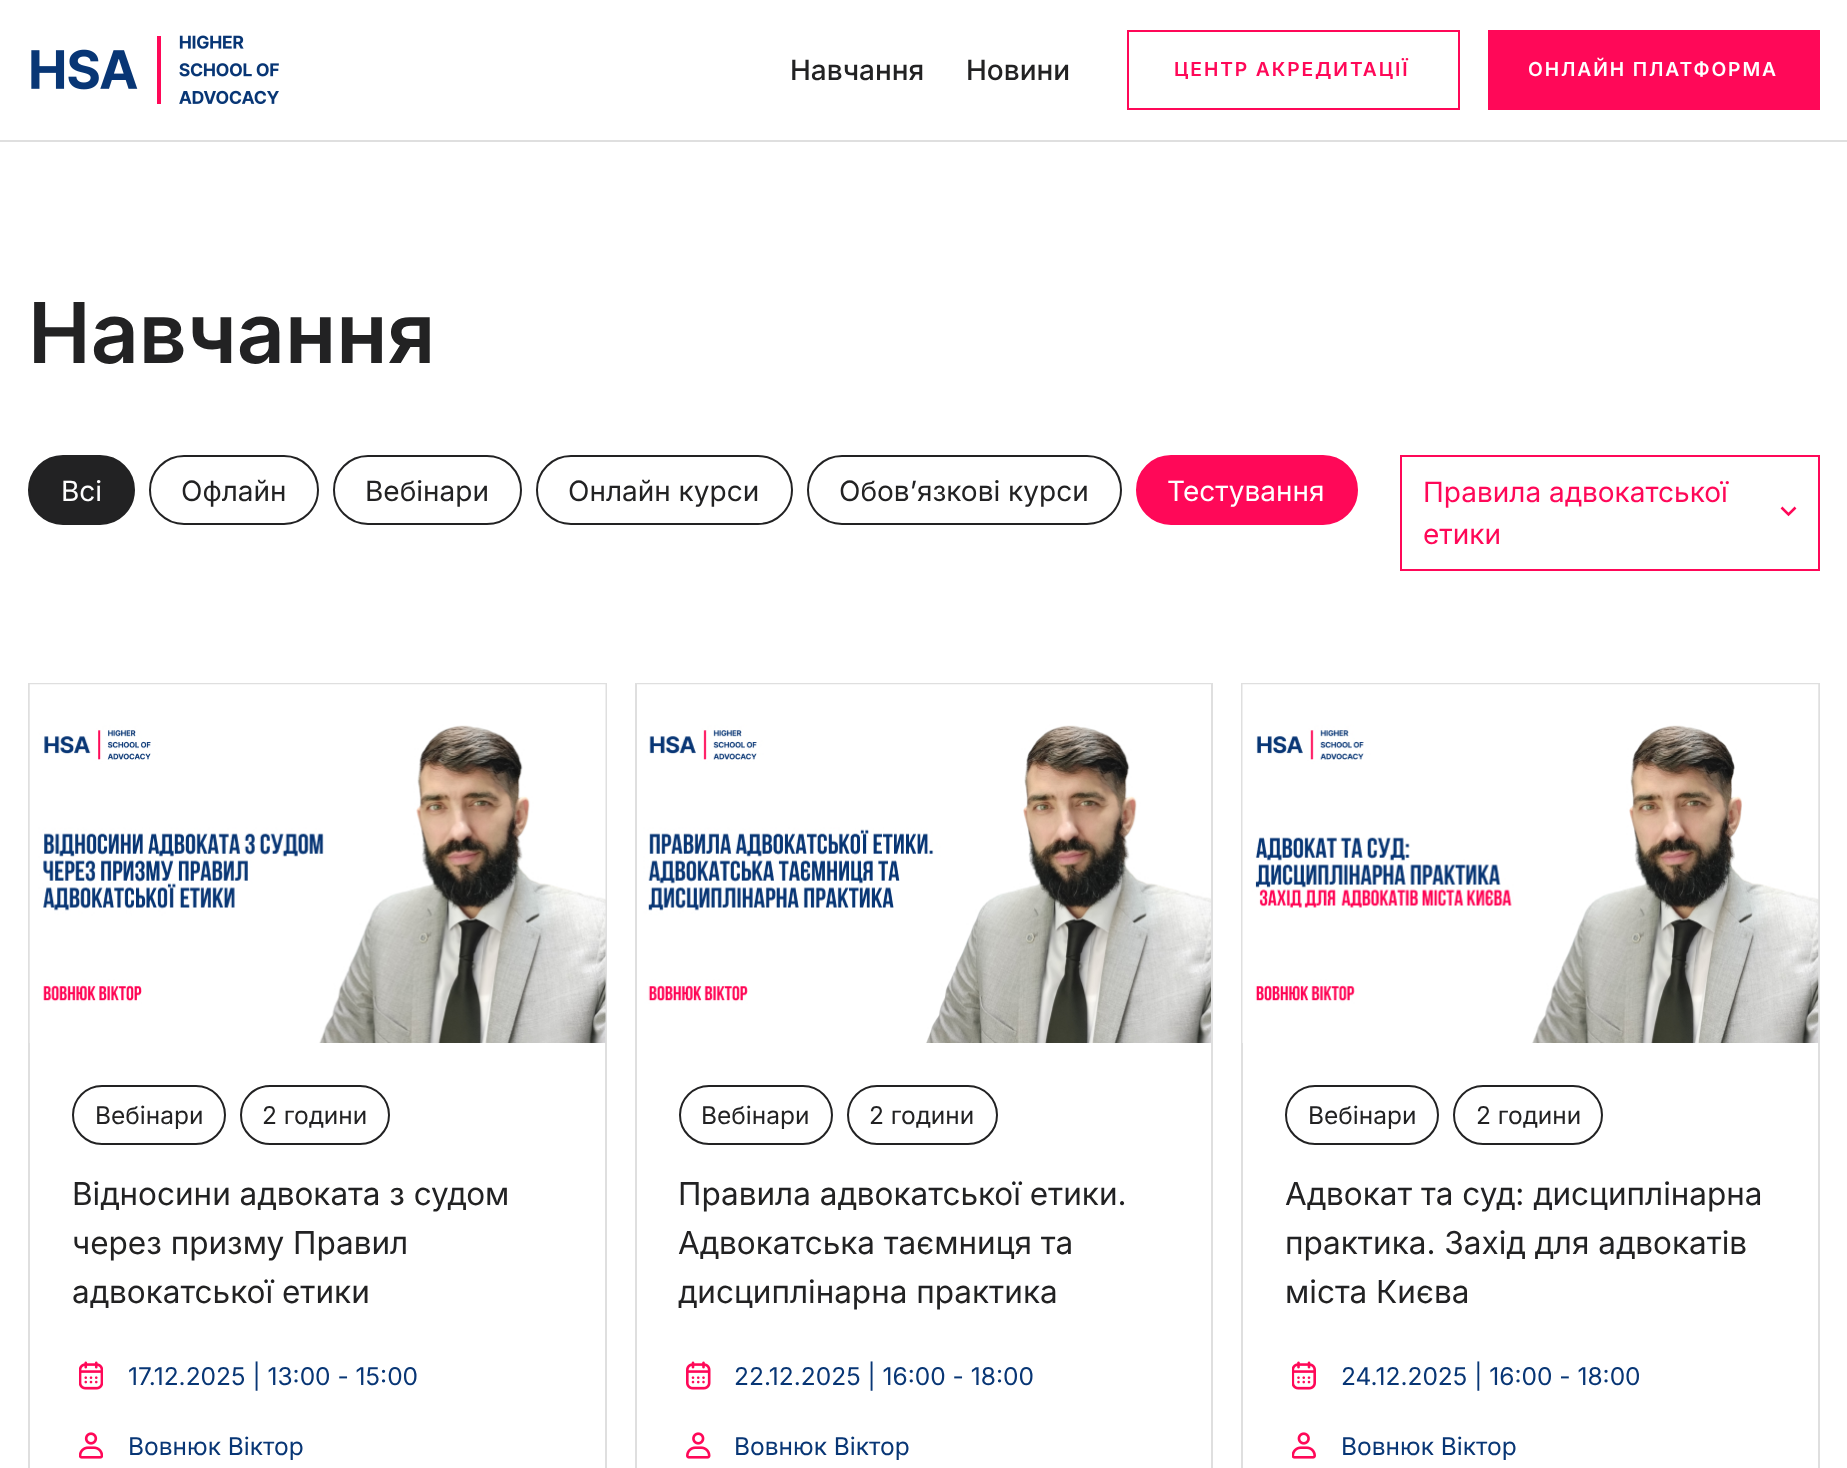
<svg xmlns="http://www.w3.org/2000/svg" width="1847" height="1468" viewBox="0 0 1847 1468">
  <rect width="100%" height="100%" fill="rgb(255,255,255)"/>
  <rect x="0" y="140" width="1847" height="2" fill="rgb(223,223,223)"/>
  <image x="31" y="35" width="248" height="69" href="pic1.png"/>
  <g font-family="Inter" font-size="28" font-weight="500" fill="rgb(34,34,35)">
    <text x="790" y="80">Навчання</text>
    <text x="966" y="80">Новини</text>
  </g>
  <rect x="1128" y="31" width="331" height="78" fill="none" stroke="rgb(255,8,88)" stroke-width="2"/>
  <text x="1174" y="76" font-family="Inter" font-size="19.25" font-weight="600" letter-spacing="1.9" fill="rgb(255,8,88)">ЦЕНТР АКРЕДИТАЦІЇ</text>
  <rect x="1488" y="30" width="332" height="80" fill="rgb(255,8,88)"/>
  <text x="1528" y="76" font-family="Inter" font-size="19.25" font-weight="600" letter-spacing="1.9" fill="rgb(255,255,255)">ОНЛАЙН ПЛАТФОРМА</text>
  <text x="28" y="363" font-family="Inter" font-size="84" font-weight="600" fill="rgb(34,34,35)">Навчання</text>
  <rect x="29" y="456" width="105" height="68" rx="34" fill="rgb(34,34,35)" stroke="rgb(34,34,35)" stroke-width="2"/>
  <text x="61" y="501" font-family="Inter" font-size="28" fill="rgb(255,255,255)">Всі</text>
  <rect x="150" y="456" width="168" height="68" rx="34" fill="none" stroke="rgb(34,34,35)" stroke-width="2"/>
  <text x="181" y="501" font-family="Inter" font-size="28" fill="rgb(34,34,35)">Офлайн</text>
  <rect x="334" y="456" width="187" height="68" rx="34" fill="none" stroke="rgb(34,34,35)" stroke-width="2"/>
  <text x="365" y="501" font-family="Inter" font-size="28" fill="rgb(34,34,35)">Вебінари</text>
  <rect x="537" y="456" width="255" height="68" rx="34" fill="none" stroke="rgb(34,34,35)" stroke-width="2"/>
  <text x="568" y="501" font-family="Inter" font-size="28" fill="rgb(34,34,35)">Онлайн курси</text>
  <rect x="808" y="456" width="313" height="68" rx="34" fill="none" stroke="rgb(34,34,35)" stroke-width="2"/>
  <text x="839" y="501" font-family="Inter" font-size="28" fill="rgb(34,34,35)">Обов’язкові курси</text>
  <rect x="1137" y="456" width="220" height="68" rx="34" fill="rgb(255,8,88)" stroke="rgb(255,8,88)" stroke-width="2"/>
  <text x="1167" y="501" font-family="Inter" font-size="28" fill="rgb(255,255,255)">Тестування</text>
  <rect x="1401" y="456" width="418" height="114" fill="none" stroke="rgb(255,8,88)" stroke-width="2"/>
  <g font-family="Inter" font-size="28" fill="rgb(255,8,88)">
    <text>
      <tspan x="1423" y="502">Правила адвокатської</tspan>
      <tspan x="1423" y="544">етики</tspan>
    </text>
  </g>
  <path d="M1781.5 507.5L1788.5 514.5L1795.5 507.5" fill="none" stroke="rgb(255,8,88)" stroke-width="2.6"/>
  <rect x="29" y="684" width="577" height="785" fill="none" stroke="rgb(223,223,223)" stroke-width="2"/>
  <image x="29" y="684" width="577" height="359" href="pic2.png"/>
  <rect x="73" y="1086" width="152" height="58" rx="29" fill="none" stroke="rgb(34,34,35)" stroke-width="2"/>
  <text x="95" y="1124" font-family="Inter" font-size="24.5" fill="rgb(34,34,35)">Вебінари</text>
  <rect x="241" y="1086" width="148" height="58" rx="29" fill="none" stroke="rgb(34,34,35)" stroke-width="2"/>
  <text x="262" y="1124" font-family="Inter" font-size="24.5" fill="rgb(34,34,35)">2 години</text>
  <g font-family="Inter" font-size="31.5" fill="rgb(34,34,35)">
    <text>
      <tspan x="72" y="1205">Відносини адвоката з судом</tspan>
      <tspan x="72" y="1254">через призму Правил</tspan>
      <tspan x="72" y="1303">адвокатської етики</tspan>
    </text>
  </g>
  <image x="79" y="1361" width="24" height="29" href="pic3.png"/>
  <text x="128" y="1385" font-family="Inter" font-size="24.5" fill="rgb(8,54,117)">17.12.2025 | 13:00 - 15:00</text>
  <image x="79" y="1432" width="24" height="27" href="pic4.png"/>
  <text x="128" y="1455" font-family="Inter" font-size="24.5" fill="rgb(8,54,117)">Вовнюк Віктор</text>
  <rect x="636" y="684" width="576" height="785" fill="none" stroke="rgb(223,223,223)" stroke-width="2"/>
  <image x="637" y="684" width="574" height="359" href="pic5.png"/>
  <rect x="680" y="1086" width="152" height="58" rx="29" fill="none" stroke="rgb(34,34,35)" stroke-width="2"/>
  <text x="701" y="1124" font-family="Inter" font-size="24.5" fill="rgb(34,34,35)">Вебінари</text>
  <rect x="848" y="1086" width="149" height="58" rx="29" fill="none" stroke="rgb(34,34,35)" stroke-width="2"/>
  <text x="869" y="1124" font-family="Inter" font-size="24.5" fill="rgb(34,34,35)">2 години</text>
  <g font-family="Inter" font-size="31.5" fill="rgb(34,34,35)">
    <text>
      <tspan x="678" y="1205">Правила адвокатської етики.</tspan>
      <tspan x="678" y="1254">Адвокатська таємниця та</tspan>
      <tspan x="678" y="1303">дисциплінарна практика</tspan>
    </text>
  </g>
  <image x="686" y="1361" width="25" height="29" href="pic6.png"/>
  <text x="734" y="1385" font-family="Inter" font-size="24.5" fill="rgb(8,54,117)">22.12.2025 | 16:00 - 18:00</text>
  <image x="686" y="1432" width="25" height="27" href="pic7.png"/>
  <text x="734" y="1455" font-family="Inter" font-size="24.5" fill="rgb(8,54,117)">Вовнюк Віктор</text>
  <rect x="1242" y="684" width="577" height="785" fill="none" stroke="rgb(223,223,223)" stroke-width="2"/>
  <image x="1242" y="684" width="577" height="359" href="pic8.png"/>
  <rect x="1286" y="1086" width="152" height="58" rx="29" fill="none" stroke="rgb(34,34,35)" stroke-width="2"/>
  <text x="1308" y="1124" font-family="Inter" font-size="24.5" fill="rgb(34,34,35)">Вебінари</text>
  <rect x="1454" y="1086" width="148" height="58" rx="29" fill="none" stroke="rgb(34,34,35)" stroke-width="2"/>
  <text x="1476" y="1124" font-family="Inter" font-size="24.5" fill="rgb(34,34,35)">2 години</text>
  <g font-family="Inter" font-size="31.5" fill="rgb(34,34,35)">
    <text>
      <tspan x="1285" y="1205">Адвокат та суд: дисциплінарна</tspan>
      <tspan x="1285" y="1254">практика. Захід для адвокатів</tspan>
      <tspan x="1285" y="1303">міста Києва</tspan>
    </text>
  </g>
  <image x="1292" y="1361" width="24" height="29" href="pic9.png"/>
  <text x="1341" y="1385" font-family="Inter" font-size="24.5" fill="rgb(8,54,117)">24.12.2025 | 16:00 - 18:00</text>
  <image x="1292" y="1432" width="24" height="27" href="pic10.png"/>
  <text x="1341" y="1455" font-family="Inter" font-size="24.5" fill="rgb(8,54,117)">Вовнюк Віктор</text>
</svg>
